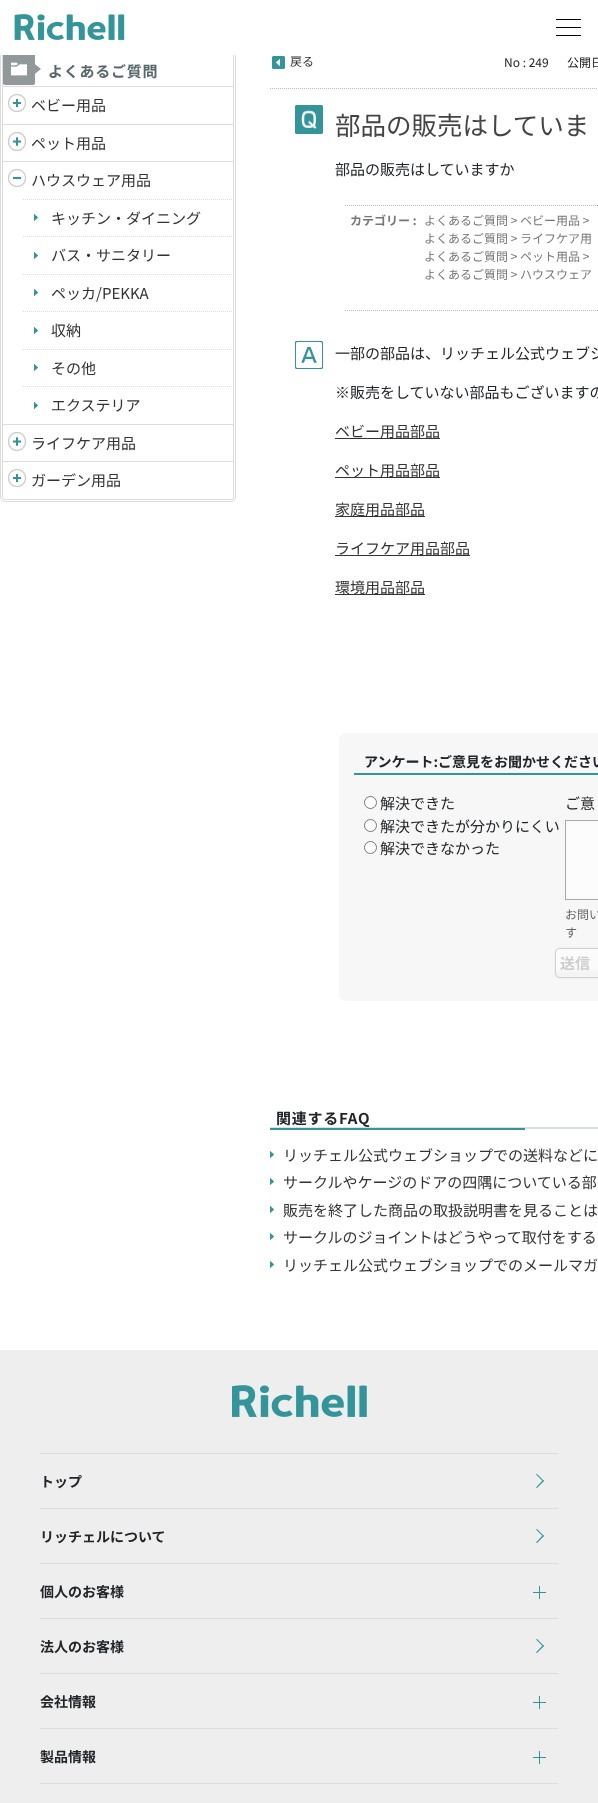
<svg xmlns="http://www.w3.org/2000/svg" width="598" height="1803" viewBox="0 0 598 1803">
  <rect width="100%" height="100%" fill="rgb(255,255,255)"/>
  <image x="14" y="14" width="111" height="26" href="pic1.png"/>
  <rect x="556" y="19" width="25" height="1" fill="rgb(0,0,0)"/>
  <rect x="556" y="27" width="25" height="1" fill="rgb(0,0,0)"/>
  <rect x="556" y="35" width="25" height="1" fill="rgb(0,0,0)"/>
  <image x="0" y="55" width="236" height="447" href="pic2.png"/>
  <image x="3" y="55" width="38" height="30" href="pic3.png"/>
  <image x="11" y="62" width="16" height="14" href="pic4.png"/>
  <text x="48" y="77" font-family="Noto Sans JP" font-size="15" font-weight="bold" letter-spacing="0.75" fill="rgb(88,103,107)">よくあるご質問</text>
  <rect x="3" y="86" width="230" height="1" fill="rgb(221,221,221)"/>
  <image x="8" y="94" width="18" height="18" href="pic5.png"/>
  <text x="31" y="111" font-family="Noto Sans JP" font-size="15" fill="rgb(51,51,51)">ベビー用品</text>
  <rect x="3" y="124" width="230" height="1" fill="rgb(221,221,221)"/>
  <image x="8" y="132" width="18" height="19" href="pic6.png"/>
  <text x="31" y="149" font-family="Noto Sans JP" font-size="15" fill="rgb(51,51,51)">ペット用品</text>
  <rect x="3" y="161" width="230" height="1" fill="rgb(221,221,221)"/>
  <image x="8" y="169" width="18" height="18" href="pic7.png"/>
  <text x="31" y="186" font-family="Noto Sans JP" font-size="15" fill="rgb(51,51,51)">ハウスウェア用品</text>
  <path d="M23 199.5H233" fill="none" stroke="rgb(221,221,221)" stroke-dasharray="1 1"/>
  <image x="34" y="214" width="4" height="7" href="pic8.png"/>
  <text x="51" y="224" font-family="Noto Sans JP" font-size="15" fill="rgb(51,51,51)">キッチン・ダイニング</text>
  <path d="M23 236.5H233" fill="none" stroke="rgb(221,221,221)" stroke-dasharray="1 1"/>
  <image x="34" y="252" width="4" height="7" href="pic8.png"/>
  <text x="51" y="261" font-family="Noto Sans JP" font-size="15" fill="rgb(51,51,51)">バス・サニタリー</text>
  <path d="M23 274.5H233" fill="none" stroke="rgb(221,221,221)" stroke-dasharray="1 1"/>
  <image x="34" y="289" width="4" height="7" href="pic8.png"/>
  <text x="51" y="299" font-family="Noto Sans JP" font-size="15" fill="rgb(51,51,51)">ペッカ/PEKKA</text>
  <path d="M23 311.5H233" fill="none" stroke="rgb(221,221,221)" stroke-dasharray="1 1"/>
  <image x="34" y="327" width="4" height="7" href="pic8.png"/>
  <text x="51" y="336" font-family="Noto Sans JP" font-size="15" fill="rgb(51,51,51)">収納</text>
  <path d="M23 349.5H233" fill="none" stroke="rgb(221,221,221)" stroke-dasharray="1 1"/>
  <image x="34" y="364" width="4" height="7" href="pic8.png"/>
  <text x="51" y="374" font-family="Noto Sans JP" font-size="15" fill="rgb(51,51,51)">その他</text>
  <path d="M23 386.5H233" fill="none" stroke="rgb(221,221,221)" stroke-dasharray="1 1"/>
  <image x="34" y="402" width="4" height="7" href="pic8.png"/>
  <text x="51" y="411" font-family="Noto Sans JP" font-size="15" fill="rgb(51,51,51)">エクステリア</text>
  <rect x="3" y="424" width="230" height="1" fill="rgb(221,221,221)"/>
  <image x="8" y="432" width="18" height="19" href="pic6.png"/>
  <text x="31" y="449" font-family="Noto Sans JP" font-size="15" fill="rgb(51,51,51)">ライフケア用品</text>
  <rect x="3" y="461" width="230" height="1" fill="rgb(221,221,221)"/>
  <image x="8" y="469" width="18" height="18" href="pic5.png"/>
  <text x="31" y="486" font-family="Noto Sans JP" font-size="15" fill="rgb(51,51,51)">ガーデン用品</text>
  <path d="M270 88.5H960" fill="none" stroke="rgb(187,187,187)" stroke-dasharray="1 1"/>
  <image x="272" y="56" width="13" height="13" href="pic9.png"/>
  <text x="290" y="66" font-family="Noto Sans JP" font-size="12" fill="rgb(51,51,51)">戻る</text>
  <g font-family="Noto Sans JP" font-size="12" fill="rgb(33,37,41)">
    <text x="504" y="67">No : 249</text>
    <text x="567" y="67">公開日</text>
  </g>
  <image x="295" y="105" width="28" height="29" href="pic10.png"/>
  <text x="335" y="135" font-family="Noto Sans JP" font-size="25.5" fill="rgb(68,68,68)">部品の販売はしていま</text>
  <text x="335" y="175" font-family="Noto Sans JP" font-size="15" fill="rgb(33,37,41)">部品の販売はしていますか</text>
  <path d="M345 205.5H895" fill="none" stroke="rgb(187,187,187)" stroke-dasharray="1 1"/>
  <path d="M345 310.5H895" fill="none" stroke="rgb(187,187,187)" stroke-dasharray="1 1"/>
  <text x="350" y="225" font-family="Noto Sans JP" font-size="12" font-weight="bold" fill="rgb(118,118,118)">カテゴリー :</text>
  <g font-family="Noto Sans JP" font-size="12" fill="rgb(118,118,118)">
    <text>
      <tspan x="424" y="225">よくあるご質問 &gt; ベビー用品 &gt;</tspan>
      <tspan x="424" y="243">よくあるご質問 &gt; ライフケア用</tspan>
      <tspan x="424" y="261">よくあるご質問 &gt; ペット用品 &gt;</tspan>
      <tspan x="424" y="279">よくあるご質問 &gt; ハウスウェア</tspan>
    </text>
  </g>
  <image x="295" y="341" width="28" height="28" href="pic11.png"/>
  <g font-family="Noto Sans JP" font-size="15" fill="rgb(33,37,41)">
    <text x="335" y="359">一部の部品は、リッチェル公式ウェブシ</text>
    <text x="335" y="398">※販売をしていない部品もございますの</text>
  </g>
  <rect x="335" y="438" width="105" height="1" fill="rgb(51,51,51)"/>
  <text x="335" y="437" font-family="Noto Sans JP" font-size="15" fill="rgb(51,51,51)">ベビー用品部品</text>
  <rect x="335" y="477" width="105" height="1" fill="rgb(51,51,51)"/>
  <text x="335" y="476" font-family="Noto Sans JP" font-size="15" fill="rgb(51,51,51)">ペット用品部品</text>
  <rect x="335" y="516" width="90" height="1" fill="rgb(51,51,51)"/>
  <text x="335" y="515" font-family="Noto Sans JP" font-size="15" fill="rgb(51,51,51)">家庭用品部品</text>
  <rect x="335" y="555" width="135" height="1" fill="rgb(51,51,51)"/>
  <text x="335" y="554" font-family="Noto Sans JP" font-size="15" fill="rgb(51,51,51)">ライフケア用品部品</text>
  <rect x="335" y="594" width="90" height="1" fill="rgb(51,51,51)"/>
  <text x="335" y="593" font-family="Noto Sans JP" font-size="15" fill="rgb(51,51,51)">環境用品部品</text>
  <rect x="339" y="733" width="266" height="268" rx="7" fill="rgb(247,247,247)"/>
  <rect x="354" y="773" width="244" height="2" fill="rgb(51,149,153)"/>
  <text x="364" y="767" font-family="Noto Sans JP" font-size="14" font-weight="bold" fill="rgb(33,37,41)">アンケート:ご意見をお聞かせください</text>
  <circle cx="370.5" cy="802.5" r="6" fill="rgb(255,255,255)" stroke="rgb(118,118,118)"/>
  <text x="380" y="809" font-family="Noto Sans JP" font-size="15" fill="rgb(33,37,41)">解決できた</text>
  <circle cx="370.5" cy="825.5" r="6" fill="rgb(255,255,255)" stroke="rgb(118,118,118)"/>
  <text x="380" y="832" font-family="Noto Sans JP" font-size="15" fill="rgb(33,37,41)">解決できたが分かりにくい</text>
  <circle cx="370.5" cy="847.5" r="6" fill="rgb(255,255,255)" stroke="rgb(118,118,118)"/>
  <g font-family="Noto Sans JP" font-size="15" fill="rgb(33,37,41)">
    <text x="380" y="854">解決できなかった</text>
    <text x="565" y="809">ご意</text>
  </g>
  <rect x="565.5" y="820.5" width="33" height="79" fill="rgb(252,252,252)" stroke="rgb(170,170,170)"/>
  <g font-family="Noto Sans JP" font-size="12" fill="rgb(102,102,102)">
    <text>
      <tspan x="565" y="919">お問い</tspan>
      <tspan x="565" y="937">す</tspan>
    </text>
  </g>
  <image x="554" y="947" width="44" height="32" href="pic12.png"/>
  <text x="560" y="969" font-family="Noto Sans JP" font-size="15" font-weight="bold" fill="rgb(205,205,205)">送信</text>
  <rect x="270" y="1127" width="328" height="2" fill="rgb(222,225,226)"/>
  <rect x="270" y="1128" width="255" height="2" fill="rgb(51,149,153)"/>
  <text x="276" y="1124" font-family="Noto Sans JP" font-size="15" font-weight="bold" letter-spacing="0.75" fill="rgb(33,37,41)">関連するFAQ</text>
  <image x="270" y="1151" width="4" height="7" href="pic8.png"/>
  <text x="283" y="1161" font-family="Noto Sans JP" font-size="15" fill="rgb(51,51,51)">リッチェル公式ウェブショップでの送料などに</text>
  <image x="270" y="1178" width="4" height="7" href="pic8.png"/>
  <text x="283" y="1188" font-family="Noto Sans JP" font-size="15" fill="rgb(51,51,51)">サークルやケージのドアの四隅についている部</text>
  <image x="270" y="1206" width="4" height="7" href="pic8.png"/>
  <text x="283" y="1216" font-family="Noto Sans JP" font-size="15" fill="rgb(51,51,51)">販売を終了した商品の取扱説明書を見ることは</text>
  <image x="270" y="1233" width="4" height="7" href="pic8.png"/>
  <text x="283" y="1243" font-family="Noto Sans JP" font-size="15" fill="rgb(51,51,51)">サークルのジョイントはどうやって取付をする</text>
  <image x="270" y="1261" width="4" height="7" href="pic8.png"/>
  <text x="283" y="1271" font-family="Noto Sans JP" font-size="15" fill="rgb(51,51,51)">リッチェル公式ウェブショップでのメールマガ</text>
  <rect x="0" y="1350" width="598" height="453" fill="rgb(238,238,238)"/>
  <image x="232" y="1385" width="135" height="32" href="pic13.png"/>
  <rect x="40" y="1453" width="518" height="1" fill="rgb(220,220,220)"/>
  <rect x="40" y="1508" width="518" height="1" fill="rgb(220,220,220)"/>
  <text x="40" y="1487" font-family="Noto Sans JP" font-size="14" font-weight="bold" fill="rgb(33,37,41)">トップ</text>
  <path d="M537 1474L544 1481L543 1481.5L536 1474.5Z" fill="rgb(51,149,153)"/>
  <path d="M543 1480L544 1481L537 1488L536 1487.5Z" fill="rgb(51,149,153)"/>
  <rect x="40" y="1563" width="518" height="1" fill="rgb(220,220,220)"/>
  <text x="40" y="1542" font-family="Noto Sans JP" font-size="14" font-weight="bold" fill="rgb(33,37,41)">リッチェルについて</text>
  <path d="M537 1529L544 1536L543 1536.5L536 1529.5Z" fill="rgb(51,149,153)"/>
  <path d="M543 1535L544 1536L537 1543L536 1542.5Z" fill="rgb(51,149,153)"/>
  <rect x="40" y="1618" width="518" height="1" fill="rgb(220,220,220)"/>
  <text x="40" y="1597" font-family="Noto Sans JP" font-size="14" font-weight="bold" fill="rgb(33,37,41)">個人のお客様</text>
  <rect x="533" y="1592" width="13" height="1" fill="rgb(51,149,153)"/>
  <rect x="539" y="1586" width="1" height="13" fill="rgb(51,149,153)"/>
  <rect x="40" y="1673" width="518" height="1" fill="rgb(220,220,220)"/>
  <text x="40" y="1652" font-family="Noto Sans JP" font-size="14" font-weight="bold" fill="rgb(33,37,41)">法人のお客様</text>
  <path d="M537 1639L544 1646L543 1646.5L536 1639.5Z" fill="rgb(51,149,153)"/>
  <path d="M543 1645L544 1646L537 1653L536 1652.5Z" fill="rgb(51,149,153)"/>
  <rect x="40" y="1728" width="518" height="1" fill="rgb(220,220,220)"/>
  <text x="40" y="1707" font-family="Noto Sans JP" font-size="14" font-weight="bold" fill="rgb(33,37,41)">会社情報</text>
  <rect x="533" y="1702" width="13" height="1" fill="rgb(51,149,153)"/>
  <rect x="539" y="1696" width="1" height="13" fill="rgb(51,149,153)"/>
  <rect x="40" y="1783" width="518" height="1" fill="rgb(220,220,220)"/>
  <text x="40" y="1762" font-family="Noto Sans JP" font-size="14" font-weight="bold" fill="rgb(33,37,41)">製品情報</text>
  <rect x="533" y="1757" width="13" height="1" fill="rgb(51,149,153)"/>
  <rect x="539" y="1751" width="1" height="13" fill="rgb(51,149,153)"/>
</svg>
